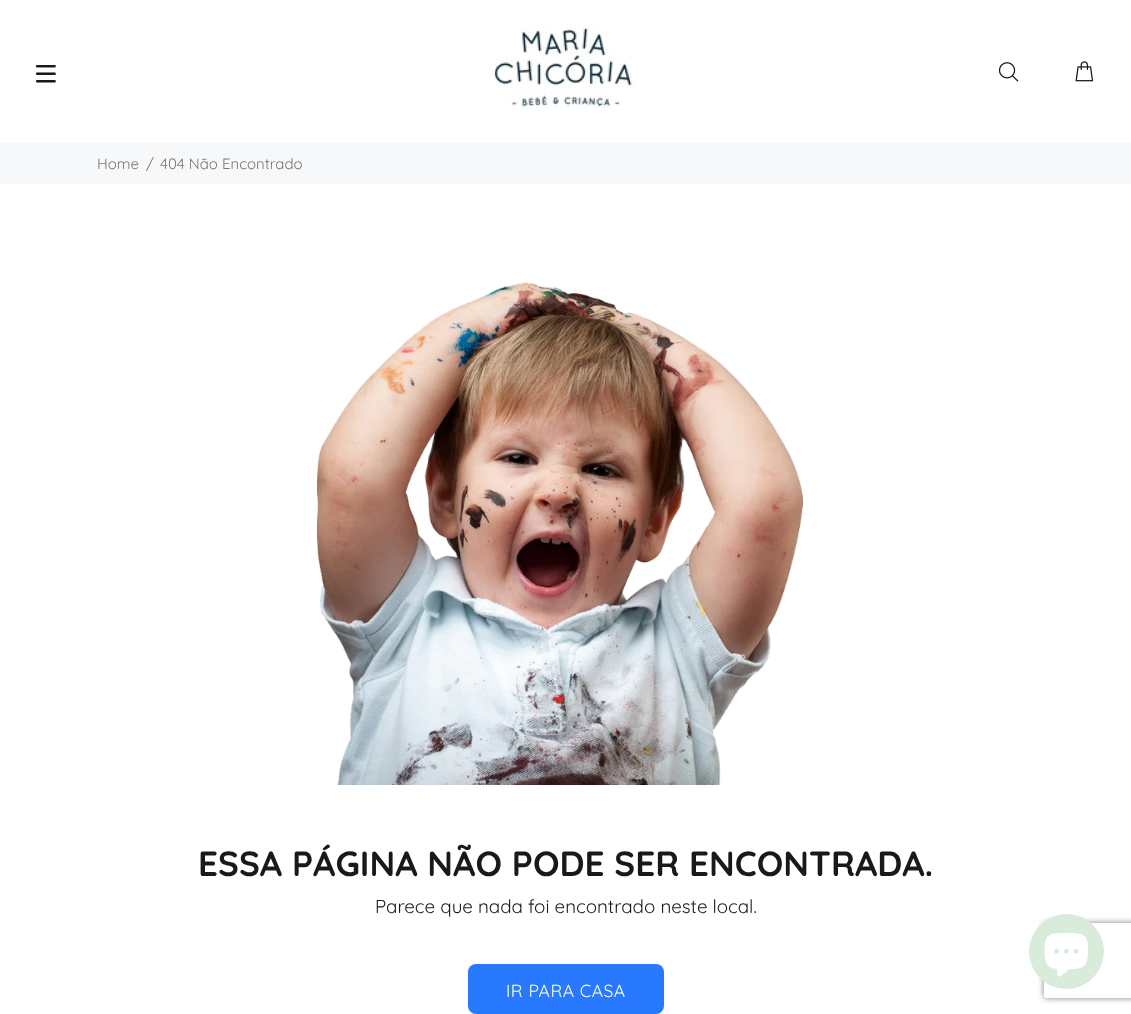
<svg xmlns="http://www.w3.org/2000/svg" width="1131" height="1014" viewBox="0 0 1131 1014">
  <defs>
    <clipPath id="clip1"><path d="M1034 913H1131V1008H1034ZM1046.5 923H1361.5C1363 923 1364 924 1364 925.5V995.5C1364 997 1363 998 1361.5 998H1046.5C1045 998 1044 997 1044 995.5V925.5C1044 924 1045 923 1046.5 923Z" clip-rule="evenodd"/></clipPath>
  </defs>
  <rect width="100%" height="100%" fill="rgb(255,255,255)"/>
  <image x="35" y="65" width="21" height="18" href="pic1.png"/>
  <image x="494" y="24" width="140" height="85" href="pic2.png"/>
  <image x="998" y="62" width="21" height="20" href="pic3.png"/>
  <image x="1075" y="61" width="19" height="21" href="pic4.png"/>
  <rect x="0" y="143" width="1131" height="41" fill="rgb(247,248,250)"/>
  <g font-family="Quicksand" font-size="15" fill="rgb(119,119,119)">
    <text x="97" y="169">Home</text>
    <text x="146" y="169">/</text>
    <text x="160" y="169">404 Não Encontrado</text>
  </g>
  <image x="316" y="282" width="488" height="503" href="pic5.png"/>
  <text x="198" y="876" font-family="Quicksand" font-size="35" font-weight="bold" fill="rgb(25,25,25)">ESSA PÁGINA NÃO PODE SER ENCONTRADA.</text>
  <text x="375" y="913" font-family="Quicksand" font-size="18.75" fill="rgb(25,25,25)">Parece que nada foi encontrado neste local.</text>
  <rect x="468" y="964" width="196" height="50" rx="8" fill="rgb(40,121,254)"/>
  <text x="506" y="997" font-family="Quicksand" font-size="17.5" letter-spacing="0.5" fill="rgb(255,255,255)">IR PARA CASA</text>
  <g clip-path="url(#clip1)">
    <rect x="1044" y="923" width="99" height="75" rx="2.5" fill="rgb(128,128,128)" filter="blur(3px)"/>
  </g>
  <circle cx="1066.5" cy="951.5" r="37.5" fill="rgb(217,235,219)"/>
  <image x="1044" y="933" width="44" height="44" href="pic6.png"/>
</svg>
